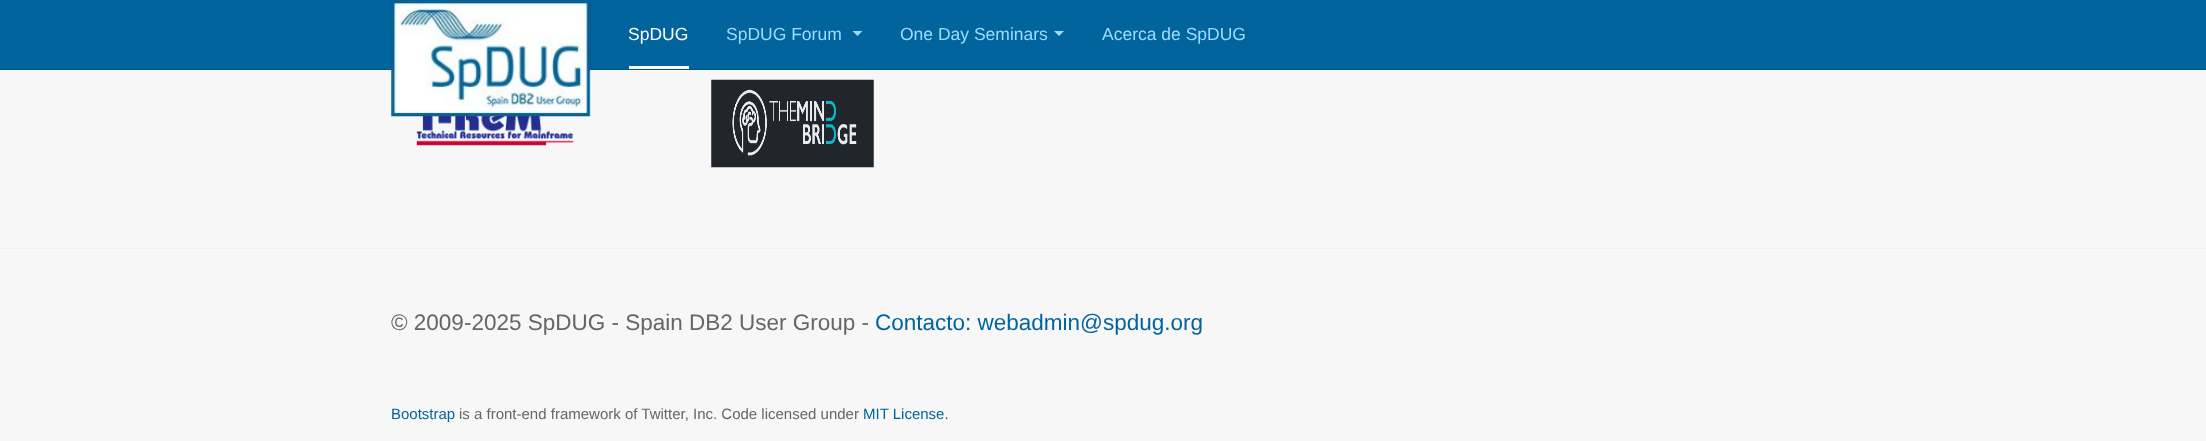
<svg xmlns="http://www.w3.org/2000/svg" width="2206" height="441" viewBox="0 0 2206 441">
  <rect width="100%" height="100%" fill="rgb(247,247,247)"/>
  <rect x="0" y="0" width="2206" height="69" fill="rgb(1,100,157)"/>
  <rect x="0" y="69" width="2206" height="1" fill="rgb(1,84,132)"/>
  <rect x="391" y="0" width="200" height="69" fill="rgb(1,84,132)"/>
  <image x="416" y="116" width="158" height="30" href="pic2.png"/>
  <image x="391" y="0" width="200" height="117" href="pic1.png"/>
  <rect x="629" y="66" width="60" height="3" fill="rgb(255,255,255)"/>
  <text x="628" y="40" font-family="Liberation Sans" font-size="17.5" fill="rgb(255,255,255)">SpDUG</text>
  <text x="726" y="40" font-family="Liberation Sans" font-size="17.5" fill="rgb(159,219,254)">SpDUG Forum</text>
  <path d="M852.5 31H862.5L857.5 36Z" fill="rgb(159,219,254)"/>
  <text x="900" y="40" font-family="Liberation Sans" font-size="17.5" fill="rgb(159,219,254)">One Day Seminars</text>
  <path d="M1054 31H1064L1059 36Z" fill="rgb(159,219,254)"/>
  <text x="1102" y="40" font-family="Liberation Sans" font-size="17.5" fill="rgb(159,219,254)">Acerca de SpDUG</text>
  <image x="711" y="79" width="163" height="89" href="pic3.png"/>
  <rect x="0" y="248" width="2206" height="1" fill="rgb(238,238,238)"/>
  <text x="391" y="330" font-family="Liberation Sans" font-size="22.5" fill="rgb(102,102,102)">© 2009-2025 SpDUG - Spain DB2 User Group -</text>
  <text x="875" y="330" font-family="Liberation Sans" font-size="22.5" fill="rgb(1,100,157)">Contacto: webadmin@spdug.org</text>
  <text x="391" y="419" font-family="Liberation Sans" font-size="15" fill="rgb(1,100,157)">Bootstrap</text>
  <text x="459" y="419" font-family="Liberation Sans" font-size="15" fill="rgb(102,102,102)">is a front-end framework of Twitter, Inc. Code licensed under</text>
  <text x="863" y="419" font-family="Liberation Sans" font-size="15" fill="rgb(1,100,157)">MIT License.</text>
</svg>
